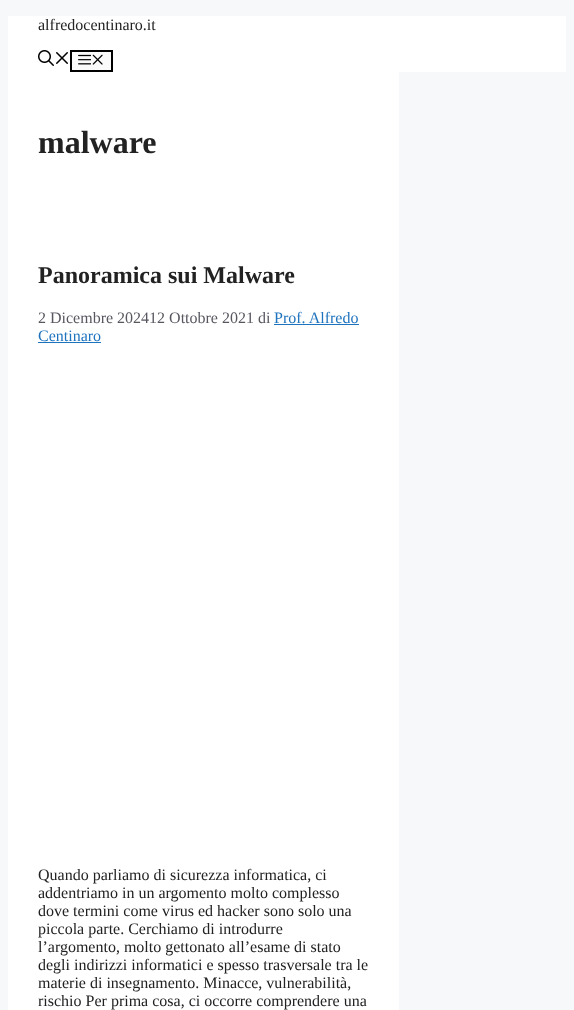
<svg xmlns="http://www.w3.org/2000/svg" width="574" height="1010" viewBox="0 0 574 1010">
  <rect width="100%" height="100%" fill="rgb(247,248,249)"/>
  <rect x="8" y="16" width="558" height="56" fill="rgb(255,255,255)"/>
  <text x="38" y="30" font-family="Liberation Serif" font-size="16" fill="rgb(34,34,34)">alfredocentinaro.it</text>
  <image x="38" y="50" width="16" height="16" href="pic1.png"/>
  <image x="56" y="52" width="12" height="12" href="pic2.png"/>
  <rect x="71" y="51" width="41" height="20" fill="rgb(250,250,250)" stroke="rgb(0,0,0)" stroke-width="2"/>
  <image x="78" y="54" width="13" height="11" href="pic3.png"/>
  <image x="92" y="54" width="11" height="11" href="pic4.png"/>
  <rect x="8" y="72" width="391" height="938" fill="rgb(255,255,255)"/>
  <text x="38" y="153" font-family="Liberation Serif" font-size="32" font-weight="bold" fill="rgb(34,34,34)">malware</text>
  <text x="38" y="283" font-family="Liberation Serif" font-size="24" font-weight="bold" fill="rgb(34,34,34)">Panoramica sui Malware</text>
  <text x="38" y="323" font-family="Liberation Serif" font-size="16" fill="rgb(87,87,96)">2 Dicembre 202412 Ottobre 2021 di</text>
  <text x="274" y="323" font-family="Liberation Serif" font-size="16" fill="rgb(30,115,190)">Prof. Alfredo</text>
  <rect x="274" y="324" width="85" height="1" fill="rgb(30,115,190)"/>
  <text x="38" y="341" font-family="Liberation Serif" font-size="16" fill="rgb(30,115,190)">Centinaro</text>
  <rect x="38" y="342" width="63" height="1" fill="rgb(30,115,190)"/>
  <g font-family="Liberation Serif" font-size="16" fill="rgb(34,34,34)">
    <text>
      <tspan x="38" y="880">Quando parliamo di sicurezza informatica, ci</tspan>
      <tspan x="38" y="898">addentriamo in un argomento molto complesso</tspan>
      <tspan x="38" y="916">dove termini come virus ed hacker sono solo una</tspan>
      <tspan x="38" y="934">piccola parte. Cerchiamo di introdurre</tspan>
      <tspan x="38" y="952">l’argomento, molto gettonato all’esame di stato</tspan>
      <tspan x="38" y="970">degli indirizzi informatici e spesso trasversale tra le</tspan>
      <tspan x="38" y="988">materie di insegnamento. Minacce, vulnerabilità,</tspan>
      <tspan x="38" y="1006">rischio Per prima cosa, ci occorre comprendere una</tspan>
    </text>
  </g>
</svg>
